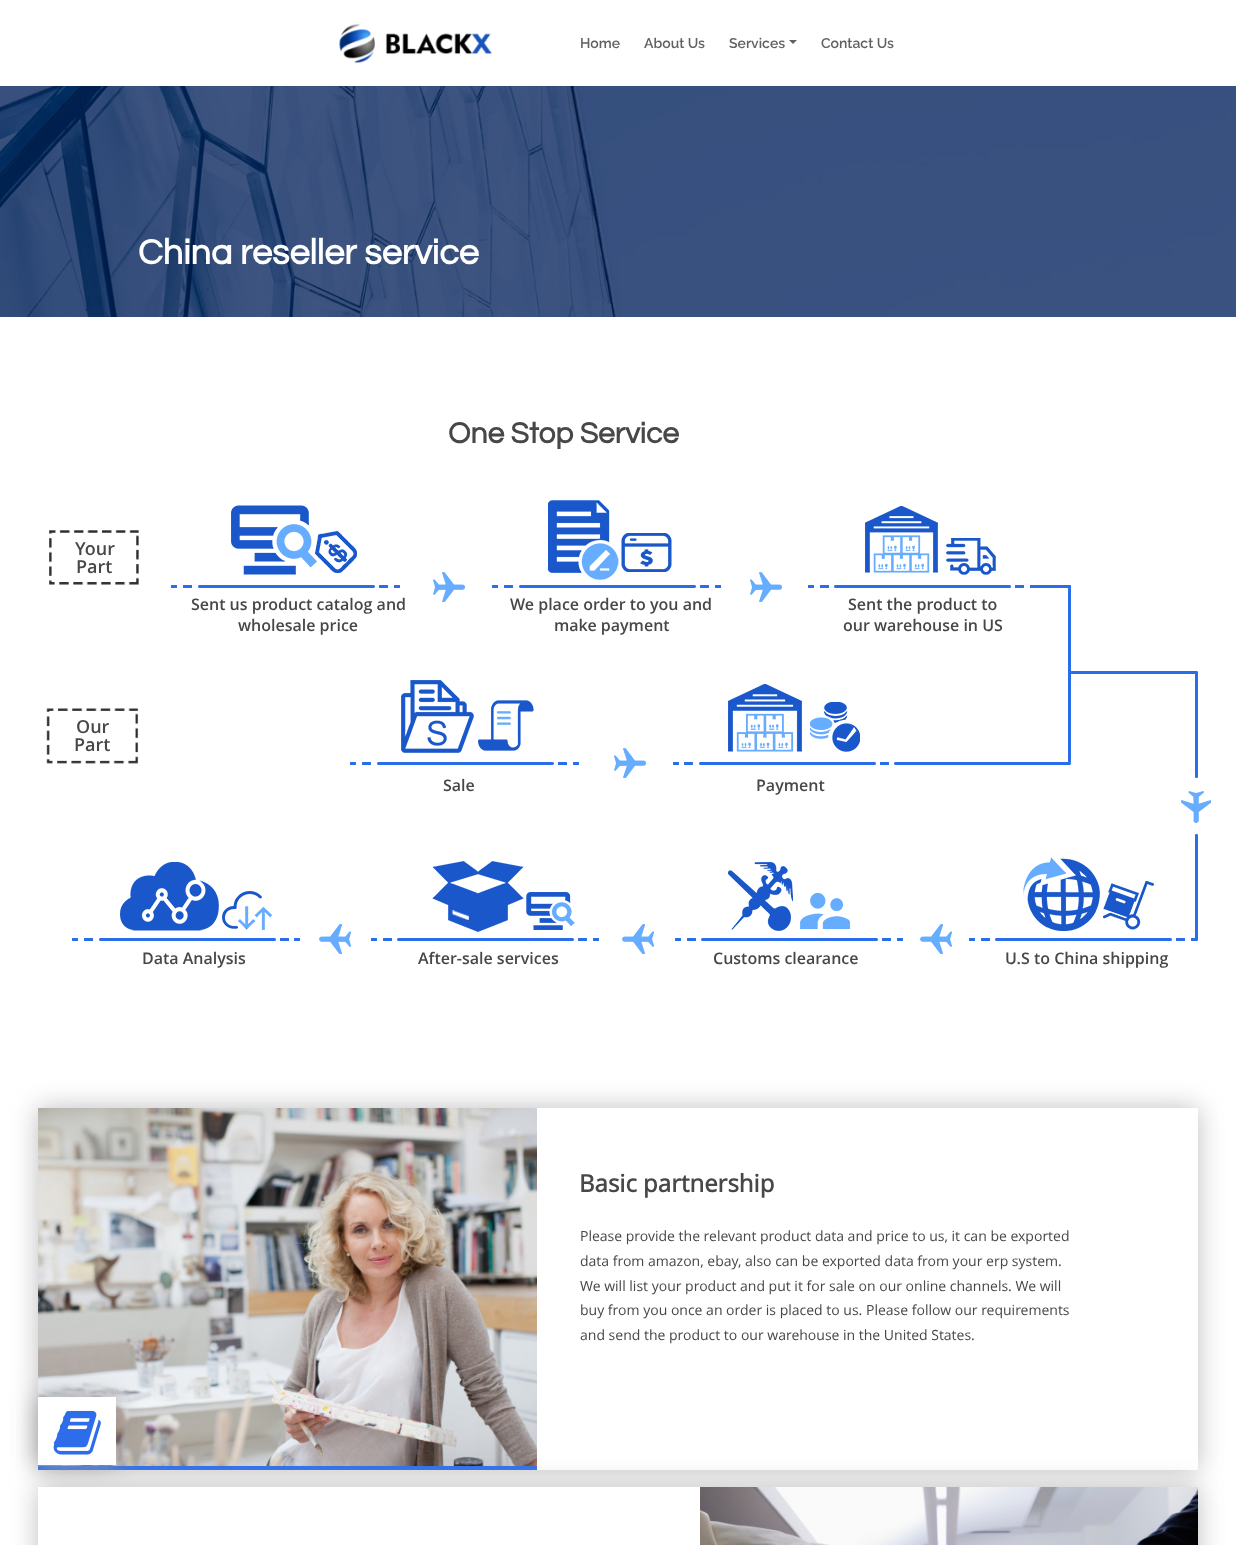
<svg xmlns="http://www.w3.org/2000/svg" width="1236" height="1545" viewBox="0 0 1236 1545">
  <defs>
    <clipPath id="clip1"><path d="M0 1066H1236V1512H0ZM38 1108H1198V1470H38Z" clip-rule="evenodd"/></clipPath>
    <clipPath id="clip2"><path d="M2 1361H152V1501H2ZM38 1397H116V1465H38Z" clip-rule="evenodd"/></clipPath>
    <clipPath id="clip3"><path d="M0 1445H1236V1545H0ZM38 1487H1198V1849H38Z" clip-rule="evenodd"/></clipPath>
  </defs>
  <rect width="100%" height="100%" fill="rgb(255,255,255)"/>
  <image x="339" y="24" width="153" height="40" href="pic1.png"/>
  <g font-family="Raleway" font-size="14" font-weight="600" fill="rgb(97,97,97)">
    <text x="580" y="48">Home</text>
    <text x="644" y="48">About Us</text>
    <text x="729" y="48">Services</text>
  </g>
  <path d="M789 40H797L793 44Z" fill="rgb(97,97,97)"/>
  <text x="821" y="48" font-family="Raleway" font-size="14" font-weight="600" fill="rgb(97,97,97)">Contact Us</text>
  <image x="0" y="86" width="1236" height="231" href="pic2.png"/>
  <text x="138" y="264" font-family="Questrial" font-size="36" font-weight="bold" fill="rgb(255,255,255)">China reseller service</text>
  <text x="448" y="443" font-family="Questrial" font-size="30" font-weight="bold" fill="rgb(71,71,71)">One Stop Service</text>
  <image x="72" y="500" width="1139" height="454" href="pic3.png"/>
  <image x="49" y="530" width="90" height="55" href="pic4.png"/>
  <g font-family="Open Sans" font-size="18" font-weight="600" fill="rgb(71,71,71)">
    <text x="75" y="555">Your</text>
    <text x="76" y="573">Part</text>
  </g>
  <g font-family="Open Sans" font-size="16" font-weight="600" fill="rgb(71,71,71)">
    <text x="191" y="610">Sent us product catalog and</text>
    <text x="238" y="631">wholesale price</text>
    <text x="510" y="610">We place order to you and</text>
    <text x="554" y="631">make payment</text>
    <text x="848" y="610">Sent the product to</text>
    <text x="843" y="631">our warehouse in US</text>
  </g>
  <image x="46" y="708" width="93" height="56" href="pic5.png"/>
  <g font-family="Open Sans" font-size="18" font-weight="600" fill="rgb(71,71,71)">
    <text x="76" y="733">Our</text>
    <text x="74" y="751">Part</text>
  </g>
  <g font-family="Open Sans" font-size="16" font-weight="600" fill="rgb(71,71,71)">
    <text x="443" y="791">Sale</text>
    <text x="756" y="791">Payment</text>
    <text x="142" y="964">Data Analysis</text>
    <text x="418" y="964">After-sale services</text>
    <text x="713" y="964">Customs clearance</text>
    <text x="1005" y="964">U.S to China shipping</text>
  </g>
  <g clip-path="url(#clip1)">
    <rect x="38" y="1108" width="1160" height="362" fill="rgb(189,189,189)" filter="blur(13.5px)"/>
  </g>
  <image x="38" y="1108" width="499" height="358" href="pic6.png"/>
  <rect x="38" y="1466" width="499" height="4" fill="rgb(46,109,233)"/>
  <text x="579" y="1192" font-family="Open Sans" font-size="24" font-weight="bold" fill="rgb(71,71,71)">Basic partnership</text>
  <g font-family="Open Sans" font-size="14" fill="rgb(71,71,71)">
    <text>
      <tspan x="580" y="1241">Please provide the relevant product data and price to us, it can be exported</tspan>
      <tspan x="580" y="1266">data from amazon, ebay, also can be exported data from your erp system.</tspan>
      <tspan x="580" y="1291">We will list your product and put it for sale on our online channels. We will</tspan>
      <tspan x="580" y="1315">buy from you once an order is placed to us. Please follow our requirements</tspan>
      <tspan x="580" y="1340">and send the product to our warehouse in the United States.</tspan>
    </text>
  </g>
  <rect x="38" y="1397" width="78" height="68" fill="rgb(255,255,255)"/>
  <g clip-path="url(#clip2)">
    <rect x="38" y="1397" width="78" height="68" fill="rgba(153,153,153,0.87)" filter="blur(11.5px)"/>
  </g>
  <image x="53" y="1410" width="48" height="45" href="pic7.png"/>
  <rect x="38" y="1487" width="662" height="8" fill="rgb(255,255,255)"/>
  <g clip-path="url(#clip3)">
    <rect x="38" y="1487" width="1160" height="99" fill="rgb(189,189,189)" filter="blur(13.5px)"/>
  </g>
  <image x="700" y="1487" width="498" height="58" href="pic8.png"/>
</svg>
